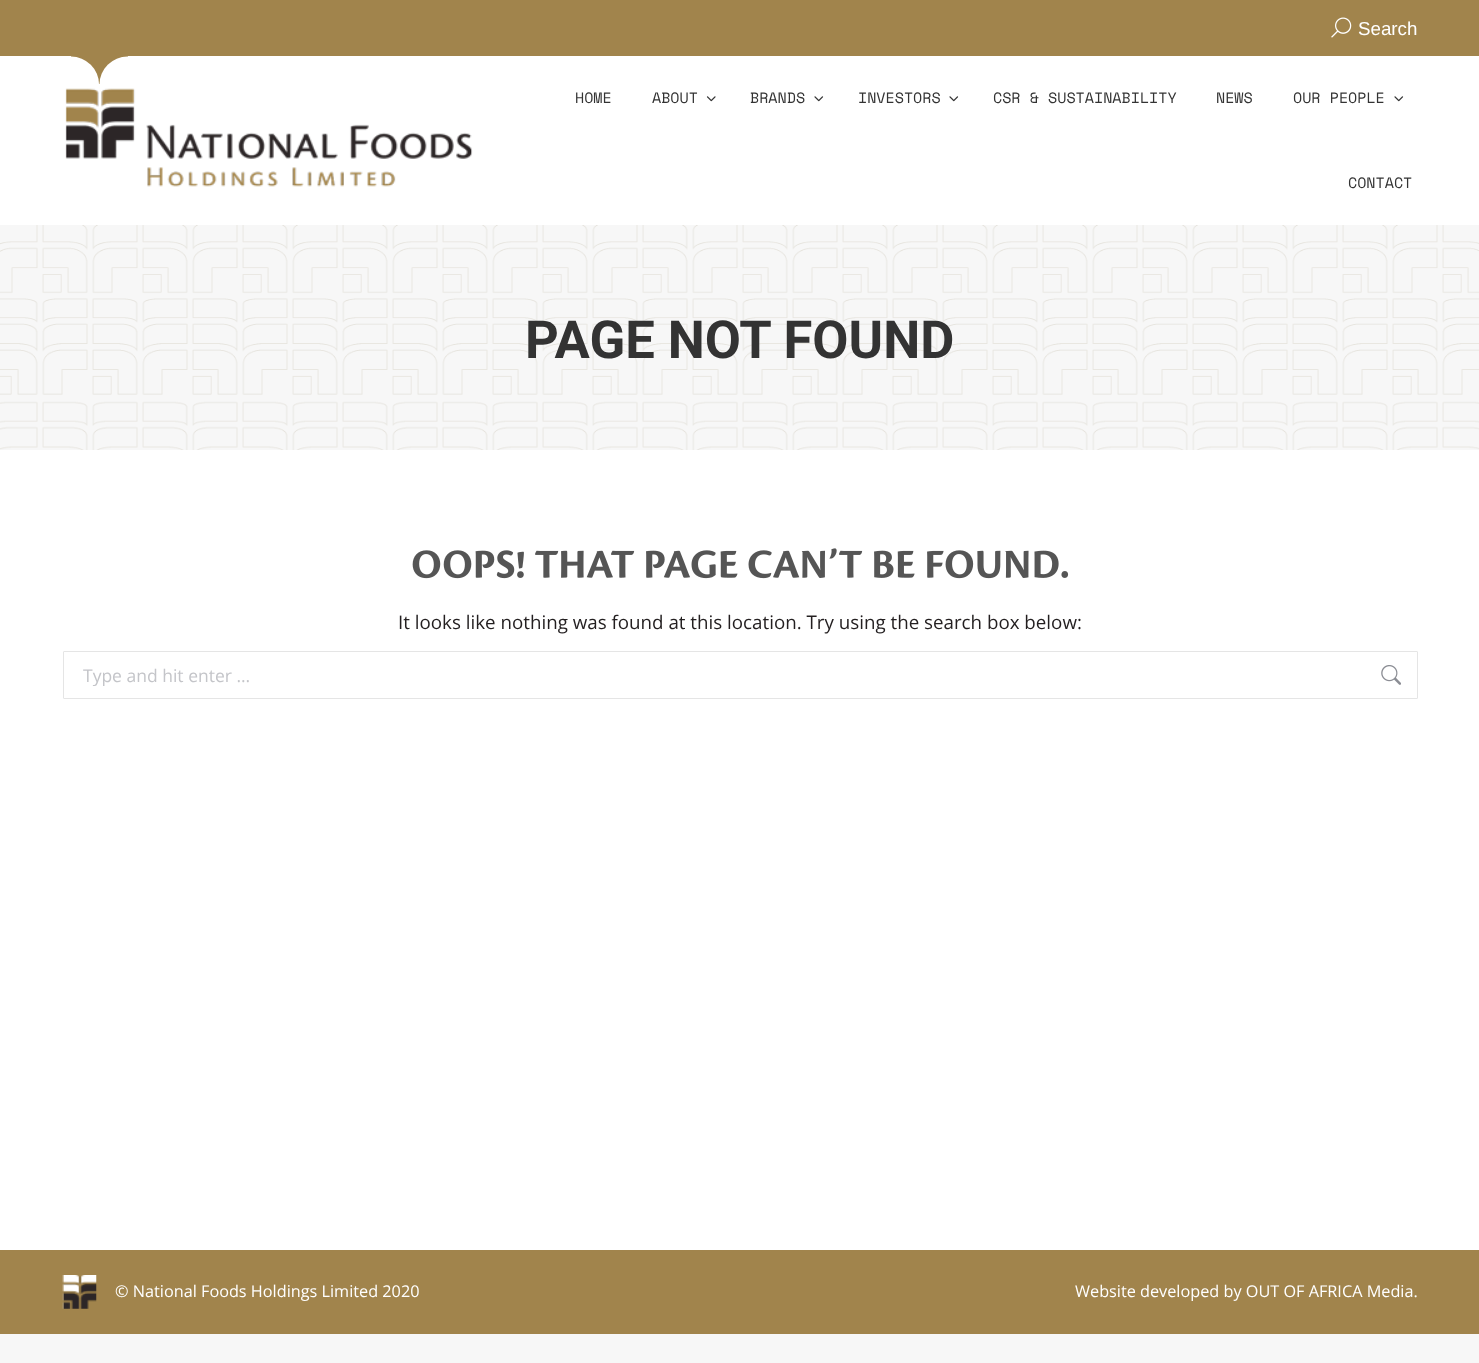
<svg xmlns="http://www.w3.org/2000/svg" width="1479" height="1363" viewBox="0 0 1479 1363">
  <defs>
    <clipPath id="clip1"><rect x="71" y="56" width="57" height="28"/></clipPath>
    <clipPath id="clip2"><rect x="83" y="663" width="1296" height="23"/></clipPath>
  </defs>
  <rect width="100%" height="100%" fill="rgb(247,247,247)"/>
  <rect x="0" y="56" width="1479" height="1194" fill="rgb(255,255,255)"/>
  <rect x="0" y="0" width="1479" height="56" fill="rgb(161,132,76)"/>
  <image x="1331" y="17" width="21" height="21" href="pic1.png"/>
  <text x="1358" y="35" font-family="Liberation Sans" font-size="18.75" fill="rgb(255,255,255)">Search</text>
  <rect x="71" y="56" width="57" height="28" fill="rgb(161,132,76)"/>
  <g clip-path="url(#clip1)">
    <circle cx="71" cy="84.5" r="28" fill="rgb(255,255,255)"/>
    <circle cx="127.5" cy="84.5" r="28" fill="rgb(255,255,255)"/>
  </g>
  <image x="65" y="88" width="408" height="99" href="pic2.png"/>
  <g font-family="Space Mono" font-size="15" fill="rgb(51,51,51)">
    <text x="575" y="103">HOME</text>
    <text x="652" y="103">ABOUT</text>
  </g>
  <image x="706" y="96" width="10" height="6" href="pic3.png"/>
  <text x="750" y="103" font-family="Space Mono" font-size="15" fill="rgb(51,51,51)">BRANDS</text>
  <image x="814" y="96" width="10" height="6" href="pic4.png"/>
  <text x="858" y="103" font-family="Space Mono" font-size="15" fill="rgb(51,51,51)">INVESTORS</text>
  <image x="949" y="96" width="10" height="6" href="pic4.png"/>
  <g font-family="Space Mono" font-size="15" fill="rgb(51,51,51)">
    <text x="993" y="103">CSR &amp; SUSTAINABILITY</text>
    <text x="1216" y="103">NEWS</text>
    <text x="1293" y="103">OUR PEOPLE</text>
  </g>
  <image x="1394" y="96" width="10" height="6" href="pic4.png"/>
  <text x="1348" y="188" font-family="Space Mono" font-size="15" fill="rgb(51,51,51)">CONTACT</text>
  <rect x="0" y="225" width="1479" height="225" fill="rgb(247,247,247)"/>
  <image x="0" y="225" width="1479" height="225" href="pic5.png"/>
  <text x="525" y="358" font-family="Roboto" font-size="52.5" font-weight="bold" fill="rgb(51,51,51)">PAGE NOT FOUND</text>
  <image x="412" y="548" width="657" height="31" href="pic6.png"/>
  <text x="398" y="629" font-family="Open Sans" font-size="18.75" fill="rgb(35,31,32)">It looks like nothing was found at this location. Try using the search box below:</text>
  <rect x="63.5" y="651.5" width="1354" height="47" rx="0.5" fill="none" stroke="rgb(229,229,229)"/>
  <g clip-path="url(#clip2)">
    <text x="83" y="682" font-family="Open Sans" font-size="17.5" fill="rgb(196,197,201)">Type and hit enter …</text>
  </g>
  <image x="1381" y="665" width="20" height="20" href="pic7.png"/>
  <rect x="0" y="1250" width="1479" height="84" fill="rgb(161,132,76)"/>
  <image x="62" y="1275" width="35" height="34" href="pic8.png"/>
  <g font-family="Open Sans" font-size="16.25" fill="rgb(255,255,255)">
    <text x="115" y="1297">© National Foods Holdings Limited 2020</text>
    <text x="1075" y="1297">Website developed by OUT OF AFRICA Media.</text>
  </g>
</svg>
